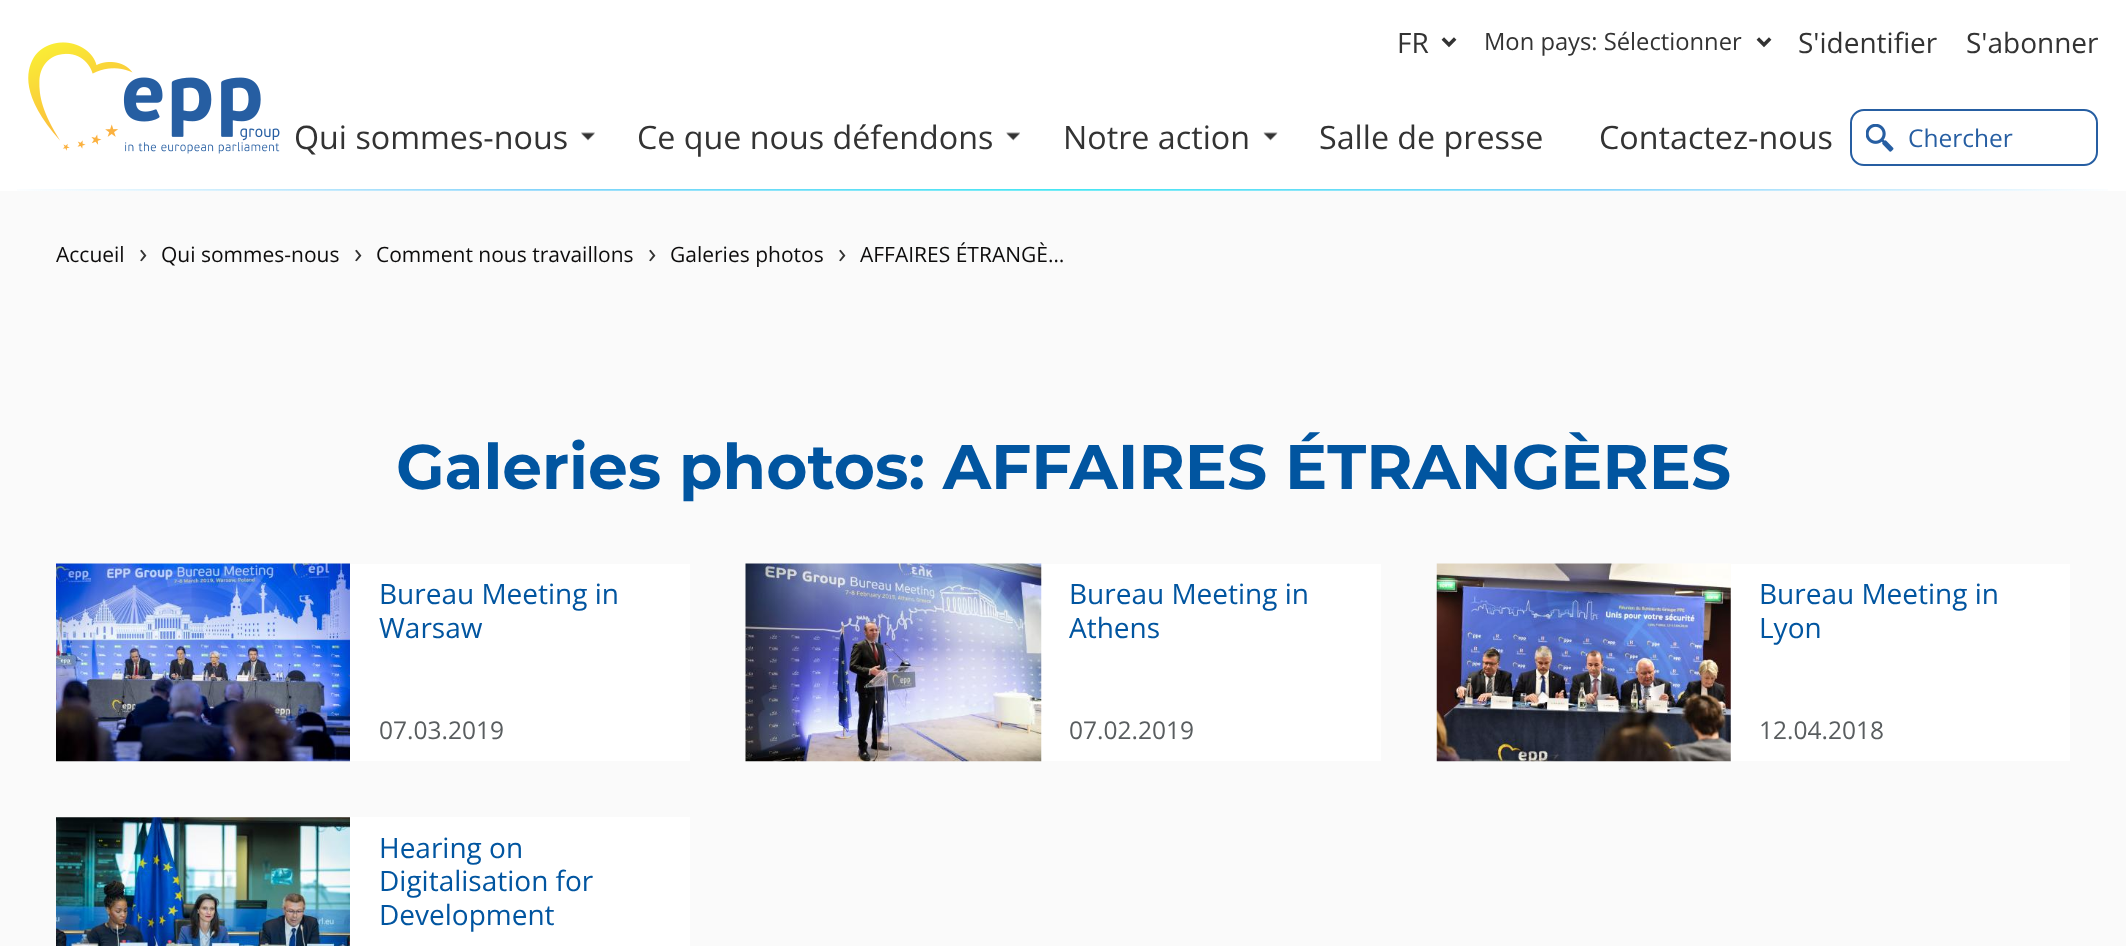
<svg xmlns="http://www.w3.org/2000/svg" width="2126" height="946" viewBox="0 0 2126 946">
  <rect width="100%" height="100%" fill="rgb(250,250,250)"/>
  <rect x="0" y="0" width="2126" height="191" fill="rgb(255,255,255)"/>
  <image x="28" y="42" width="252" height="112" href="pic1.png"/>
  <text x="1397" y="53" font-family="Open Sans" font-size="28" fill="rgb(51,51,51)">FR</text>
  <image x="1441" y="37" width="16" height="11" href="pic2.png"/>
  <text x="1484" y="50" font-family="Open Sans" font-size="23.75" fill="rgb(51,51,51)">Mon pays: Sélectionner</text>
  <image x="1756" y="37" width="16" height="11" href="pic2.png"/>
  <g font-family="Open Sans" font-size="28" fill="rgb(51,51,51)">
    <text x="1798" y="53">S'identifier</text>
    <text x="1966" y="53">S'abonner</text>
  </g>
  <image x="17" y="189" width="2091" height="2" href="pic3.png"/>
  <text x="294" y="149" font-family="Open Sans" font-size="32.25" fill="rgb(51,51,51)">Qui sommes-nous</text>
  <image x="581" y="132" width="14" height="9" href="pic4.png"/>
  <text x="637" y="149" font-family="Open Sans" font-size="32.25" fill="rgb(51,51,51)">Ce que nous défendons</text>
  <image x="1006" y="132" width="14" height="9" href="pic5.png"/>
  <text x="1063" y="149" font-family="Open Sans" font-size="32.25" fill="rgb(51,51,51)">Notre action</text>
  <image x="1263" y="132" width="15" height="9" href="pic6.png"/>
  <g font-family="Open Sans" font-size="32.25" fill="rgb(51,51,51)">
    <text x="1319" y="149">Salle de presse</text>
    <text x="1599" y="149">Contactez-nous</text>
  </g>
  <rect x="1851" y="110" width="246" height="55" rx="13" fill="none" stroke="rgb(38,94,162)" stroke-width="2"/>
  <image x="1866" y="124" width="28" height="28" href="pic7.png"/>
  <text x="1908" y="147" font-family="Open Sans" font-size="24.5" fill="rgb(38,94,162)">Chercher</text>
  <text x="56" y="262" font-family="Open Sans" font-size="21" fill="rgb(13,12,12)">Accueil</text>
  <text x="139" y="263" font-family="Open Sans" font-size="28" fill="rgb(51,51,51)">›</text>
  <text x="161" y="262" font-family="Open Sans" font-size="21" fill="rgb(13,12,12)">Qui sommes-nous</text>
  <text x="354" y="263" font-family="Open Sans" font-size="28" fill="rgb(51,51,51)">›</text>
  <text x="376" y="262" font-family="Open Sans" font-size="21" fill="rgb(13,12,12)">Comment nous travaillons</text>
  <text x="648" y="263" font-family="Open Sans" font-size="28" fill="rgb(51,51,51)">›</text>
  <text x="670" y="262" font-family="Open Sans" font-size="21" fill="rgb(13,12,12)">Galeries photos</text>
  <text x="838" y="263" font-family="Open Sans" font-size="28" fill="rgb(51,51,51)">›</text>
  <text x="860" y="262" font-family="Open Sans" font-size="21" fill="rgb(13,12,12)">AFFAIRES ÉTRANGÈ…</text>
  <text x="396" y="489" font-family="Montserrat" font-size="63" font-weight="bold" fill="rgb(1,85,160)">Galeries photos: AFFAIRES ÉTRANGÈRES</text>
  <image x="56" y="563" width="294" height="199" href="pic8.png"/>
  <rect x="350" y="564" width="340" height="197" fill="rgb(255,255,255)"/>
  <g font-family="Open Sans" font-size="28" fill="rgb(1,85,160)">
    <text>
      <tspan x="379" y="604">Bureau Meeting in</tspan>
      <tspan x="379" y="638">Warsaw</tspan>
    </text>
  </g>
  <text x="379" y="739" font-family="Open Sans" font-size="24.5" fill="rgb(89,93,95)">07.03.2019</text>
  <rect x="1041" y="564" width="340" height="197" fill="rgb(255,255,255)"/>
  <image x="745" y="563" width="297" height="199" href="pic9.png"/>
  <g font-family="Open Sans" font-size="28" fill="rgb(1,85,160)">
    <text>
      <tspan x="1069" y="604">Bureau Meeting in</tspan>
      <tspan x="1069" y="638">Athens</tspan>
    </text>
  </g>
  <text x="1069" y="739" font-family="Open Sans" font-size="24.5" fill="rgb(89,93,95)">07.02.2019</text>
  <image x="1436" y="563" width="295" height="199" href="pic10.png"/>
  <rect x="1731" y="564" width="339" height="197" fill="rgb(255,255,255)"/>
  <g font-family="Open Sans" font-size="28" fill="rgb(1,85,160)">
    <text>
      <tspan x="1759" y="604">Bureau Meeting in</tspan>
      <tspan x="1759" y="638">Lyon</tspan>
    </text>
  </g>
  <text x="1759" y="739" font-family="Open Sans" font-size="24.5" fill="rgb(89,93,95)">12.04.2018</text>
  <image x="56" y="817" width="294" height="129" href="pic11.png"/>
  <rect x="350" y="817" width="340" height="129" fill="rgb(255,255,255)"/>
  <g font-family="Open Sans" font-size="28" fill="rgb(1,85,160)">
    <text>
      <tspan x="379" y="858">Hearing on</tspan>
      <tspan x="379" y="891">Digitalisation for</tspan>
      <tspan x="379" y="925">Development</tspan>
    </text>
  </g>
</svg>
